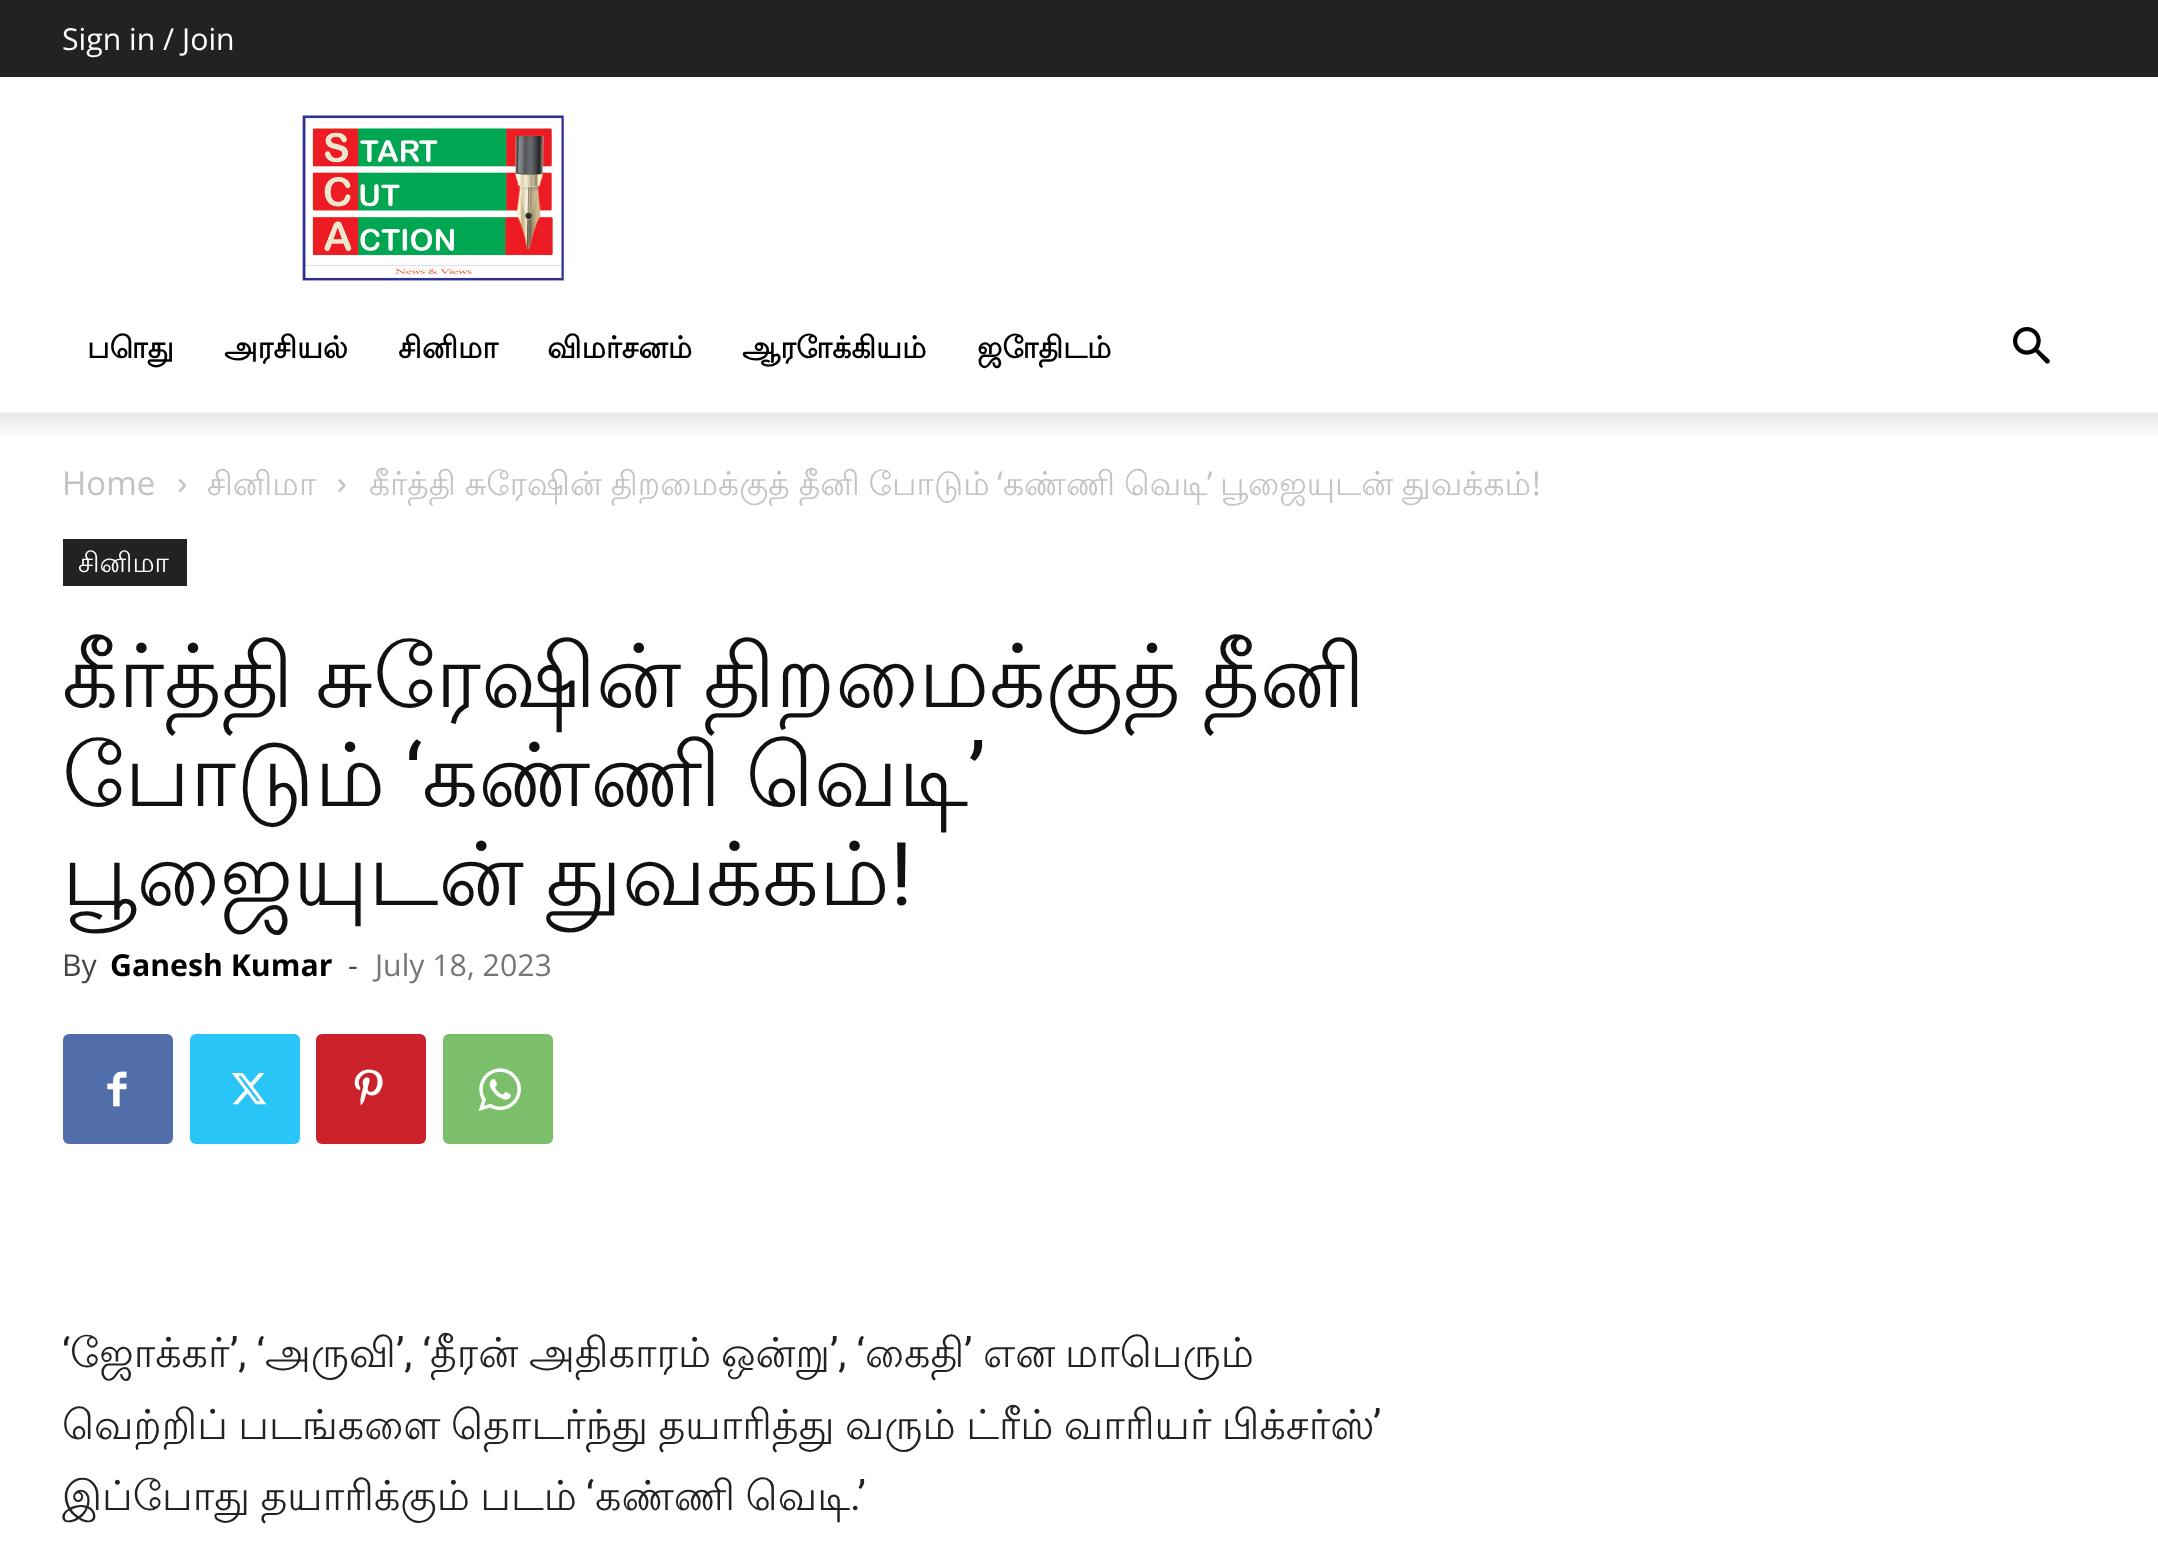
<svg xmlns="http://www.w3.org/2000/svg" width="2158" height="1545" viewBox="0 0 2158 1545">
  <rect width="100%" height="100%" fill="rgb(255,255,255)"/>
  <rect x="0" y="0" width="2158" height="77" fill="rgb(34,34,34)"/>
  <text x="62" y="50" font-family="Open Sans" font-size="30.25" fill="rgb(255,255,255)">Sign in / Join</text>
  <image x="302" y="115" width="262" height="166" href="pic1.png"/>
  <g font-family="Lohit Tamil" font-size="30.25" font-weight="bold" fill="rgb(0,0,0)">
    <text x="87" y="358">பொது</text>
    <text x="224" y="358">அரசியல்</text>
    <text x="398" y="358">சினிமா</text>
    <text x="547" y="358">விமர்சனம்</text>
    <text x="742" y="358">ஆரோக்கியம்</text>
    <text x="977" y="358">ஜோதிடம்</text>
  </g>
  <image x="2013" y="327" width="37" height="37" href="pic2.png"/>
  <image x="0" y="412" width="2158" height="24" href="pic3.png"/>
  <text x="62" y="495" font-family="Open Sans" font-size="33" fill="rgb(195,195,195)">Home</text>
  <image x="178" y="479" width="9" height="13" href="pic4.png"/>
  <text x="207" y="495" font-family="Lohit Tamil" font-size="33" fill="rgb(195,195,195)">சினிமா</text>
  <image x="338" y="479" width="8" height="13" href="pic5.png"/>
  <text x="369" y="495" word-spacing="-1" font-family="Lohit Tamil" font-size="33" fill="rgb(195,195,195)">கீர்த்தி சுரேஷின் திறமைக்குத் தீனி போடும்</text>
  <text x="997" y="495" font-family="Open Sans" font-size="33" fill="rgb(195,195,195)">‘</text>
  <text x="1003" y="495" word-spacing="-1" font-family="Lohit Tamil" font-size="33" fill="rgb(195,195,195)">கண்ணி வெடி</text>
  <text x="1207" y="495" font-family="Open Sans" font-size="33" fill="rgb(195,195,195)">’</text>
  <text x="1220" y="495" word-spacing="-1" font-family="Lohit Tamil" font-size="33" fill="rgb(195,195,195)">பூஜையுடன் துவக்கம்</text>
  <text x="1532" y="495" font-family="Open Sans" font-size="33" fill="rgb(195,195,195)">!</text>
  <rect x="63" y="539" width="124" height="47" fill="rgb(34,34,34)"/>
  <text x="78" y="572" font-family="Lohit Tamil" font-size="27.5" fill="rgb(255,255,255)">சினிமா</text>
  <g font-family="Lohit Tamil" font-size="88" fill="rgb(17,17,17)">
    <text>
      <tspan x="62" y="707" word-spacing="-4.5">கீர்த்தி சுரேஷின் திறமைக்குத் தீனி</tspan>
      <tspan x="62" y="806">போடும்</tspan>
    </text>
  </g>
  <text x="405" y="806" font-family="Roboto" font-size="88" fill="rgb(17,17,17)">‘</text>
  <text x="422" y="806" word-spacing="-2" font-family="Lohit Tamil" font-size="88" fill="rgb(17,17,17)">கண்ணி வெடி</text>
  <text x="968" y="806" font-family="Roboto" font-size="88" fill="rgb(17,17,17)">’</text>
  <text x="62" y="905" word-spacing="-4.5" font-family="Lohit Tamil" font-size="88" fill="rgb(17,17,17)">பூஜையுடன் துவக்கம்</text>
  <text x="890" y="905" font-family="Roboto" font-size="88" fill="rgb(17,17,17)">!</text>
  <text x="62" y="976" font-family="Open Sans" font-size="30.25" fill="rgb(68,68,68)">By</text>
  <text x="110" y="976" font-family="Open Sans" font-size="30.25" font-weight="bold" fill="rgb(0,0,0)">Ganesh Kumar</text>
  <text x="348" y="976" font-family="Open Sans" font-size="30.25" fill="rgb(68,68,68)">-</text>
  <text x="375" y="976" font-family="Open Sans" font-size="30.25" fill="rgb(118,118,118)">July 18, 2023</text>
  <rect x="63" y="1034" width="110" height="110" rx="6" fill="rgb(81,110,171)"/>
  <image x="107" y="1071" width="20" height="36" href="pic6.png"/>
  <rect x="190" y="1034" width="110" height="110" rx="6" fill="rgb(41,197,246)"/>
  <image x="232" y="1073" width="35" height="32" href="pic7.png"/>
  <rect x="316" y="1034" width="110" height="110" rx="6" fill="rgb(202,33,42)"/>
  <image x="354" y="1069" width="29" height="37" href="pic8.png"/>
  <rect x="443" y="1034" width="110" height="110" rx="6" fill="rgb(123,191,106)"/>
  <image x="478" y="1068" width="43" height="44" href="pic9.png"/>
  <text x="62" y="1367" font-family="Roboto" font-size="41.25" fill="rgb(34,34,34)">‘</text>
  <text x="70" y="1367" font-family="Lohit Tamil" font-size="41.25" fill="rgb(34,34,34)">ஜோக்கர்</text>
  <text x="230" y="1367" font-family="Roboto" font-size="41.25" fill="rgb(34,34,34)">’, ‘</text>
  <text x="265" y="1367" font-family="Lohit Tamil" font-size="41.25" fill="rgb(34,34,34)">அருவி</text>
  <text x="396" y="1367" font-family="Roboto" font-size="41.25" fill="rgb(34,34,34)">’, ‘</text>
  <g font-family="Lohit Tamil" font-size="41.25" fill="rgb(34,34,34)">
    <text x="430" y="1367">தீரன்</text>
    <text x="529" y="1367">அதிகாரம்</text>
    <text x="721" y="1367">ஒன்று</text>
  </g>
  <text x="830" y="1367" font-family="Roboto" font-size="41.25" fill="rgb(34,34,34)">’, ‘</text>
  <text x="865" y="1367" font-family="Lohit Tamil" font-size="41.25" fill="rgb(34,34,34)">கைதி</text>
  <text x="964" y="1367" font-family="Roboto" font-size="41.25" fill="rgb(34,34,34)">’</text>
  <g font-family="Lohit Tamil" font-size="41.25" fill="rgb(34,34,34)">
    <text x="1065" y="1367">மாபெரும்</text>
    <text x="983" y="1367">என</text>
    <text x="62" y="1439" word-spacing="-2">வெற்றிப் படங்களை தொடர்ந்து தயாரித்து வரும் ட்ரீம் வாரியர் பிக்சர்ஸ்</text>
  </g>
  <text x="1373" y="1439" font-family="Roboto" font-size="41.25" fill="rgb(34,34,34)">’</text>
  <text x="62" y="1510" word-spacing="-2" font-family="Lohit Tamil" font-size="41.25" fill="rgb(34,34,34)">இப்போது தயாரிக்கும் படம்</text>
  <text x="586" y="1510" font-family="Roboto" font-size="41.25" fill="rgb(34,34,34)">‘</text>
  <text x="595" y="1510" word-spacing="-2" font-family="Lohit Tamil" font-size="41.25" fill="rgb(34,34,34)">கண்ணி வெடி</text>
  <text x="850" y="1510" font-family="Roboto" font-size="41.25" fill="rgb(34,34,34)">.’</text>
</svg>
